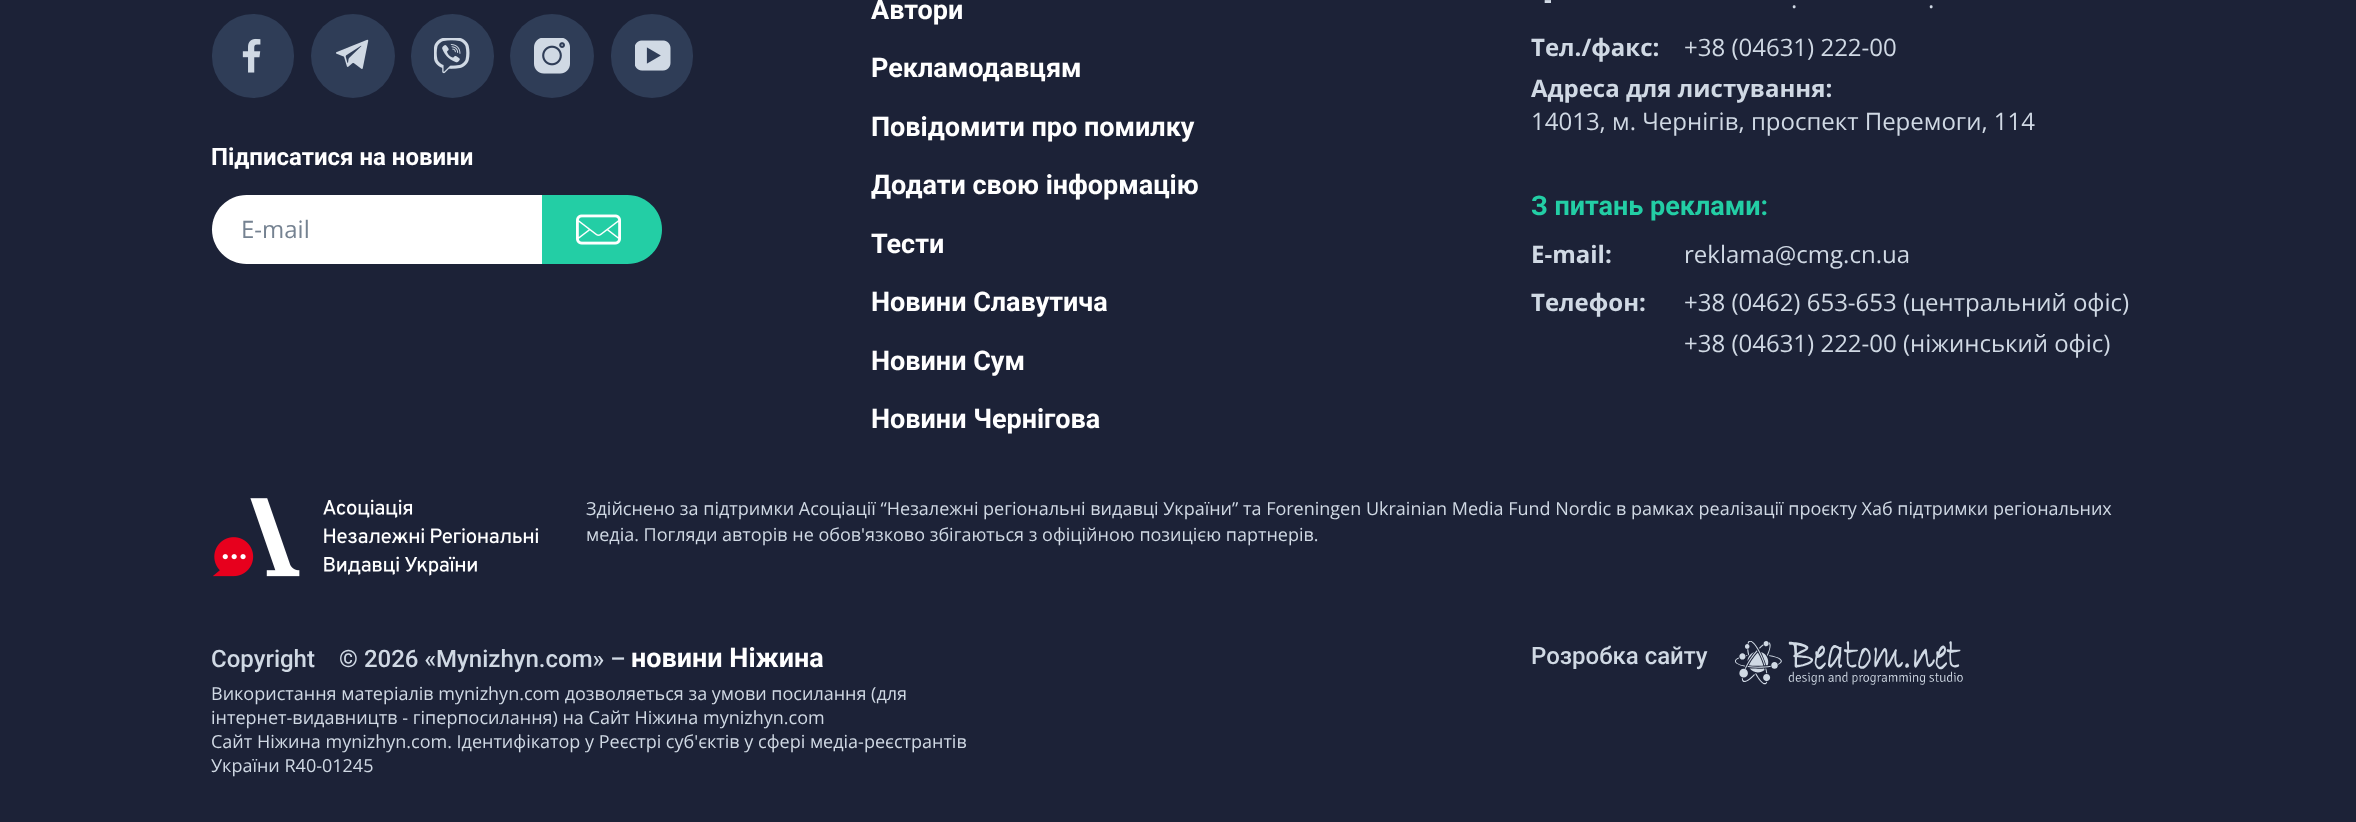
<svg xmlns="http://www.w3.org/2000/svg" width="2356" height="822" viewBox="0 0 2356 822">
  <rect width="100%" height="100%" fill="rgb(28,34,55)"/>
  <rect x="212" y="14" width="82" height="84" rx="41" fill="rgb(47,61,87)"/>
  <image x="242" y="38" width="19" height="35" href="pic1.png"/>
  <circle cx="353" cy="56" r="42" fill="rgb(47,61,87)"/>
  <image x="336" y="39" width="33" height="30" href="pic2.png"/>
  <rect x="411" y="14" width="83" height="84" rx="41.5" fill="rgb(47,61,87)"/>
  <image x="434" y="38" width="36" height="36" href="pic3.png"/>
  <circle cx="552" cy="56" r="42" fill="rgb(47,61,87)"/>
  <image x="534" y="38" width="36" height="36" href="pic4.png"/>
  <rect x="611" y="14" width="82" height="84" rx="41" fill="rgb(47,61,87)"/>
  <image x="635" y="40" width="36" height="31" href="pic5.png"/>
  <text x="211" y="165" font-family="Roboto" font-size="24" font-weight="bold" fill="rgb(255,255,255)">Підписатися на новини</text>
  <path d="M246.5 195H542V264H246.5C227.5 264 212 248.5 212 229.5C212 210.5 227.5 195 246.5 195Z" fill="rgb(255,255,255)"/>
  <text x="241" y="238" font-family="Open Sans" font-size="24" fill="rgb(117,130,145)">E-mail</text>
  <path d="M542 195H627.5C646.5 195 662 210.5 662 229.5C662 248.5 646.5 264 627.5 264H542Z" fill="rgb(35,206,165)"/>
  <image x="576" y="214" width="45" height="31" href="pic6.png"/>
  <g font-family="Roboto" font-size="27" font-weight="bold" fill="rgb(255,255,255)">
    <text x="871" y="19">Автори</text>
    <text x="871" y="77">Рекламодавцям</text>
    <text x="871" y="136">Повідомити про помилку</text>
    <text x="871" y="194">Додати свою інформацію</text>
    <text x="871" y="253">Тести</text>
    <text x="871" y="311">Новини Славутича</text>
    <text x="871" y="370">Новини Сум</text>
    <text x="871" y="428">Новини Чернігова</text>
  </g>
  <text x="1544" y="8" font-family="Open Sans" font-size="24" font-weight="bold" fill="rgb(208,217,228)">-</text>
  <g font-family="Open Sans" font-size="24" fill="rgb(208,217,228)">
    <text x="1791" y="8">.</text>
    <text x="1928" y="8">.</text>
  </g>
  <text x="1531" y="56" font-family="Open Sans" font-size="24" font-weight="bold" fill="rgb(208,217,228)">Тел./факс:</text>
  <text x="1684" y="56" font-family="Open Sans" font-size="24" fill="rgb(208,217,228)">+38 (04631) 222-00</text>
  <text x="1531" y="97" font-family="Open Sans" font-size="24" font-weight="bold" fill="rgb(208,217,228)">Адреса для листування:</text>
  <text x="1531" y="130" font-family="Open Sans" font-size="24" fill="rgb(208,217,228)">14013, м. Чернігів, проспект Перемоги, 114</text>
  <text x="1531" y="215" font-family="Roboto" font-size="27" font-weight="bold" fill="rgb(35,206,165)">З питань реклами:</text>
  <text x="1531" y="263" font-family="Open Sans" font-size="24" font-weight="bold" fill="rgb(208,217,228)">E-mail:</text>
  <text x="1684" y="263" font-family="Open Sans" font-size="24" fill="rgb(208,217,228)">reklama@cmg.cn.ua</text>
  <text x="1531" y="311" font-family="Open Sans" font-size="24" font-weight="bold" fill="rgb(208,217,228)">Телефон:</text>
  <g font-family="Open Sans" font-size="24" fill="rgb(208,217,228)">
    <text>
      <tspan x="1684" y="311">+38 (0462) 653-653 (центральний офіс)</tspan>
      <tspan x="1684" y="352">+38 (04631) 222-00 (ніжинський офіс)</tspan>
    </text>
  </g>
  <image x="212" y="498" width="327" height="79" href="pic7.png"/>
  <g font-family="Open Sans" font-size="18" fill="rgb(208,217,228)">
    <text>
      <tspan x="586" y="515">Здійснено за підтримки Асоціації “Незалежні регіональні видавці України” та Foreningen Ukrainian Media Fund Nordic в рамках реалізації проєкту Хаб підтримки регіональних</tspan>
      <tspan x="586" y="541">медіа. Погляди авторів не обов'язково збігаються з офіційною позицією партнерів.</tspan>
    </text>
  </g>
  <text x="211" y="667" font-family="Roboto" font-size="24" font-weight="500" fill="rgb(208,217,228)">Copyright   © 2026 «Mynizhyn.com» –</text>
  <text x="631" y="667" font-family="Roboto" font-size="27" font-weight="bold" fill="rgb(255,255,255)">новини Ніжина</text>
  <g font-family="Open Sans" font-size="18" fill="rgb(208,217,228)">
    <text>
      <tspan x="211" y="700">Використання матеріалів mynizhyn.com дозволяеться за умови посилання (для</tspan>
      <tspan x="211" y="724">інтернет-видавництв - гіперпосилання) на Сайт Ніжина mynizhyn.com</tspan>
      <tspan x="211" y="748">Сайт Ніжина mynizhyn.com. Ідентифікатор у Реєстрі суб'єктів у сфері медіа-реєстрантів</tspan>
      <tspan x="211" y="772">України R40-01245</tspan>
    </text>
  </g>
  <text x="1531" y="664" font-family="Roboto" font-size="24" font-weight="500" fill="rgb(208,217,228)">Розробка сайту</text>
  <image x="1735" y="641" width="228" height="44" href="pic8.png"/>
</svg>
